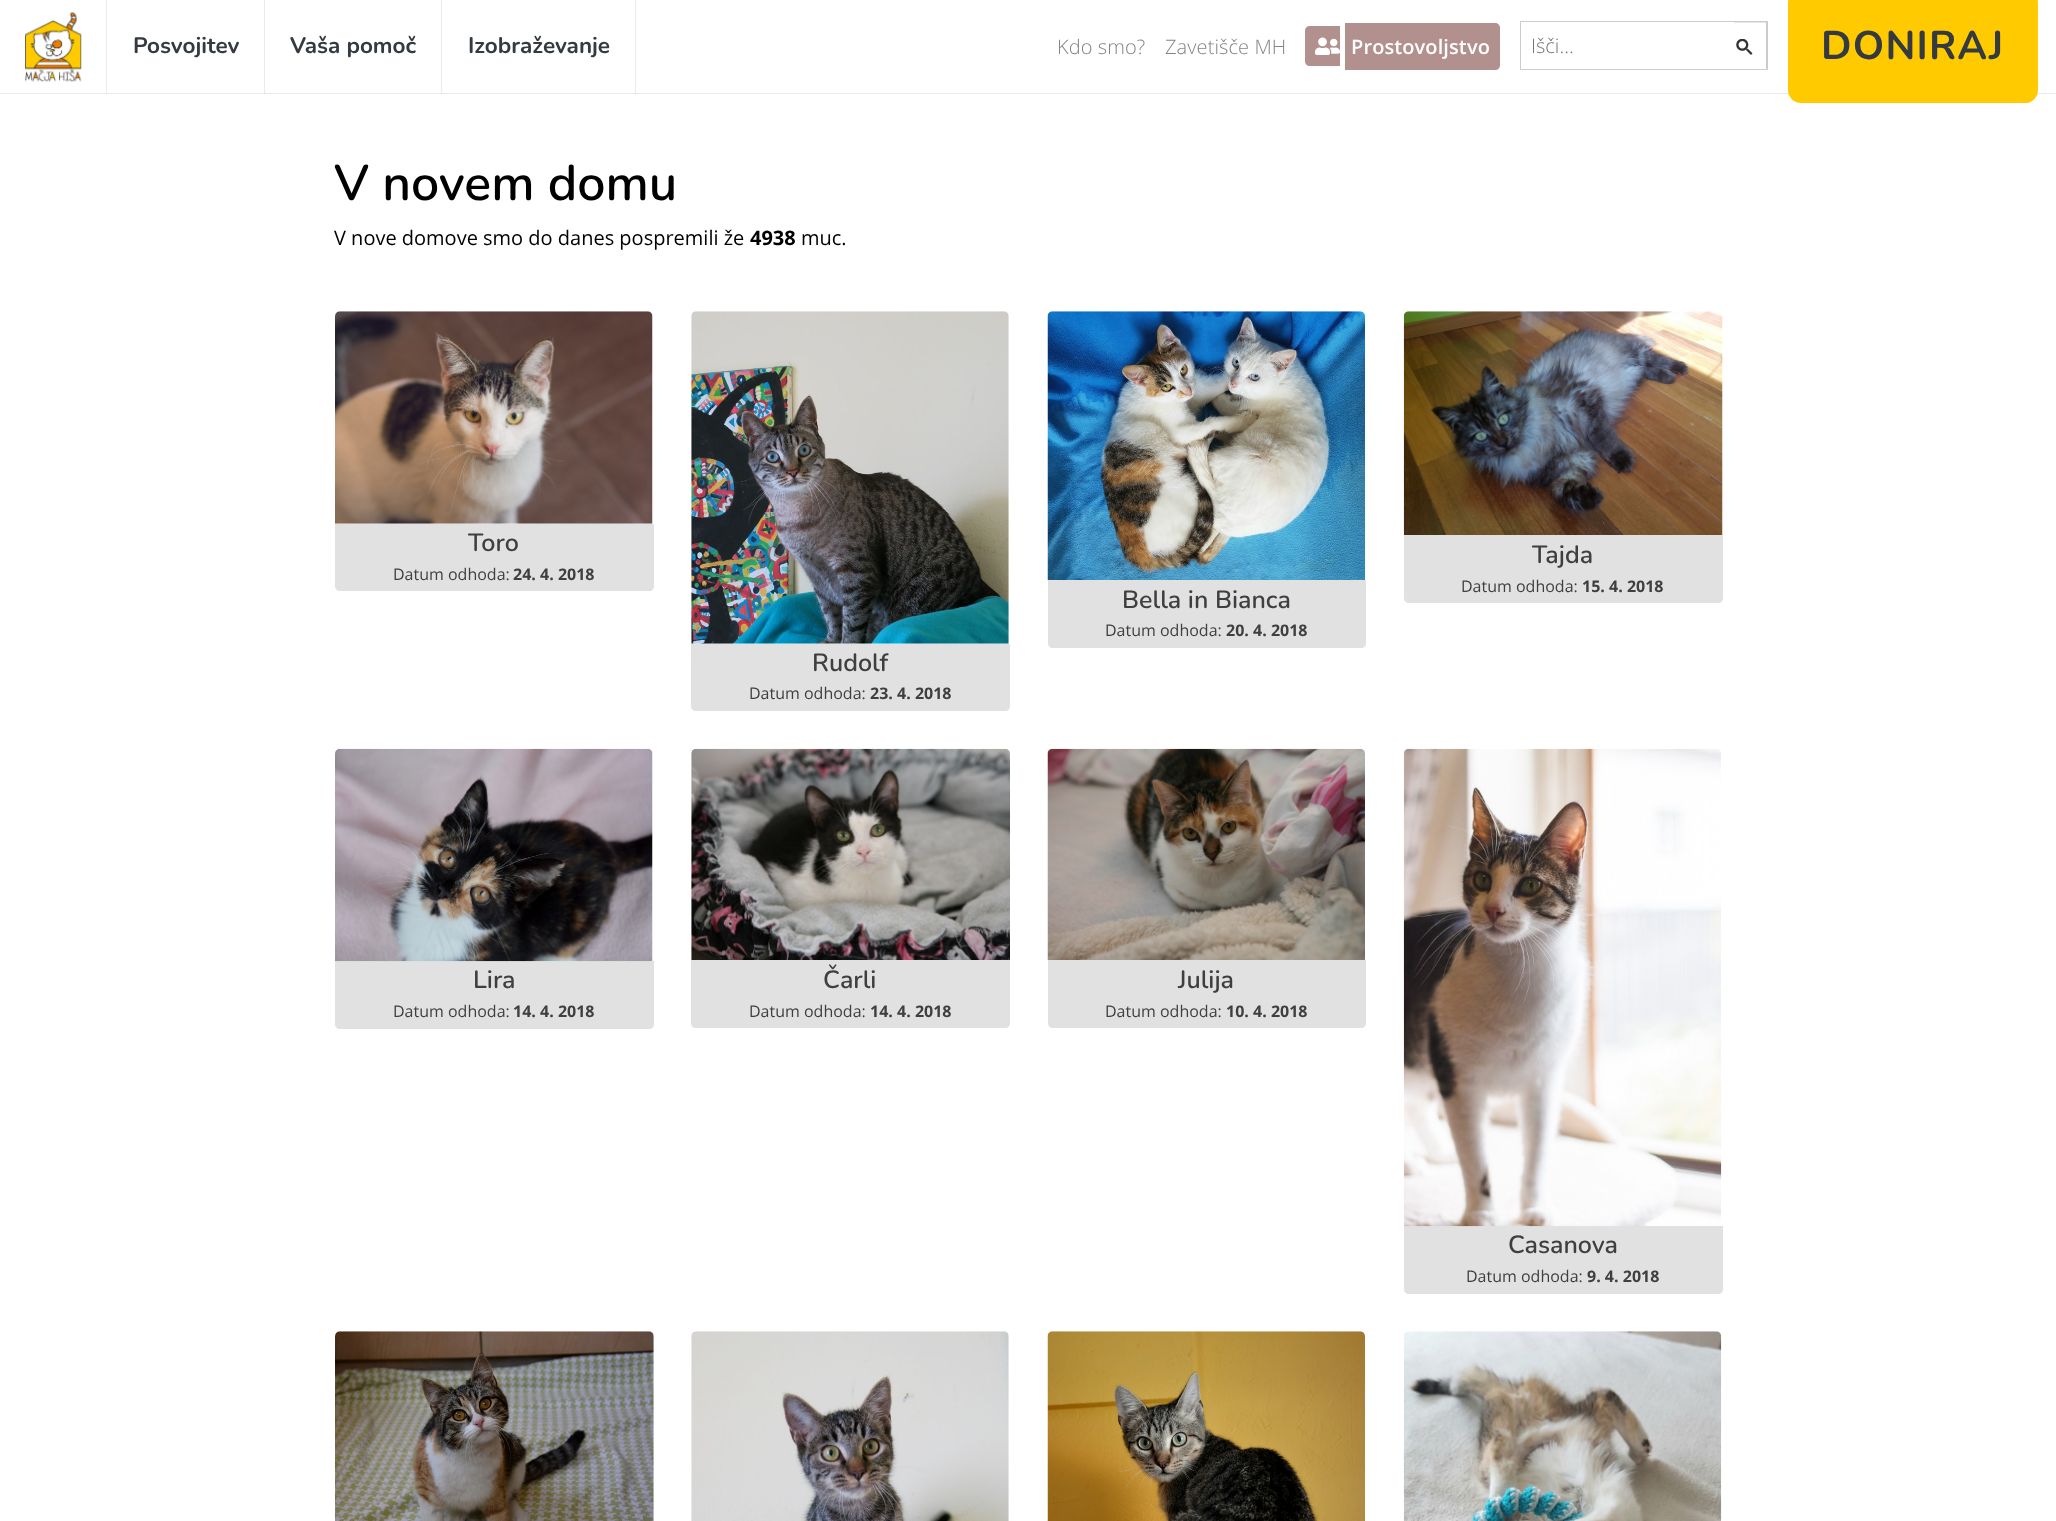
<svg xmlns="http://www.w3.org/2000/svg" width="2056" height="1521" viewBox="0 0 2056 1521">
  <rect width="100%" height="100%" fill="rgb(255,255,255)"/>
  <rect x="0" y="93" width="2056" height="1" fill="rgb(233,233,233)"/>
  <rect x="106" y="0" width="1" height="93" fill="rgb(235,235,235)"/>
  <image x="25" y="12" width="57" height="70" href="pic1.png"/>
  <rect x="264" y="0" width="1" height="94" fill="rgba(0,0,0,0.08)"/>
  <text x="133" y="53" font-family="Nunito" font-size="22.5" font-weight="bold" fill="rgb(52,58,64)">Posvojitev</text>
  <rect x="441" y="0" width="1" height="94" fill="rgba(0,0,0,0.08)"/>
  <text x="290" y="53" font-family="Nunito" font-size="22.5" font-weight="bold" fill="rgb(52,58,64)">Vaša pomoč</text>
  <rect x="635" y="0" width="1" height="94" fill="rgba(0,0,0,0.08)"/>
  <text x="468" y="53" font-family="Nunito" font-size="22.5" font-weight="bold" fill="rgb(52,58,64)">Izobraževanje</text>
  <g font-family="Open Sans" font-size="20" font-weight="300" letter-spacing="0.1" fill="rgb(132,132,132)">
    <text x="1057" y="54">Kdo smo?</text>
    <text x="1165" y="54">Zavetišče MH</text>
  </g>
  <path d="M1310 26H1340V66H1310C1307 66 1305 64 1305 61V31C1305 28 1307 26 1310 26Z" fill="rgb(177,144,142)"/>
  <path d="M1345 23H1495C1498 23 1500 25 1500 28V65C1500 68 1498 70 1495 70H1345Z" fill="rgb(177,144,142)"/>
  <image x="1315" y="37" width="25" height="18" href="pic2.png"/>
  <text x="1351" y="54" font-family="Open Sans" font-size="20" font-weight="600" letter-spacing="0.1" fill="rgb(255,255,255)">Prostovoljstvo</text>
  <path d="M1520 21H1734V22H1521Z" fill="rgb(204,204,204)"/>
  <path d="M1734 70H1520L1521 69H1734Z" fill="rgb(204,204,204)"/>
  <path d="M1520 70V21L1521 22V69Z" fill="rgba(0,0,0,0.2)"/>
  <text x="1531" y="53" font-family="Open Sans" font-size="20" font-weight="300" fill="rgb(117,117,117)">Išči...</text>
  <path d="M1734 21H1767.5L1766 22.5H1734Z" fill="rgb(204,204,204)"/>
  <path d="M1768 21V70L1766 69V22Z" fill="rgba(0,0,0,0.2)"/>
  <path d="M1767.5 70H1734V69H1766Z" fill="rgba(0,0,0,0.2)"/>
  <image x="1736" y="39" width="17" height="16" href="pic3.png"/>
  <rect x="1788" y="-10" width="250" height="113" rx="13" fill="rgb(255,203,0)"/>
  <text x="1821" y="59" font-family="Nunito" font-size="40" font-weight="bold" letter-spacing="1.25" fill="rgb(52,58,64)">DONIRAJ</text>
  <text x="334" y="200" font-family="Nunito" font-size="50" font-weight="600" fill="rgb(0,0,0)">V novem domu</text>
  <text x="334" y="245" font-family="Open Sans" font-size="20" fill="rgb(0,0,0)">V nove domove smo do danes pospremili že</text>
  <text x="750" y="245" font-family="Open Sans" font-size="20" font-weight="bold" fill="rgb(0,0,0)">4938</text>
  <text x="801" y="245" font-family="Open Sans" font-size="20" fill="rgb(0,0,0)">muc.</text>
  <image x="335" y="311" width="318" height="213" href="pic4.png"/>
  <path d="M335 524H654V586C654 589 652 591 649 591H340C337 591 335 589 335 586Z" fill="rgb(225,225,225)"/>
  <text x="468" y="551" font-family="Nunito" font-size="25" font-weight="600" fill="rgb(63,63,63)">Toro</text>
  <text x="393" y="580" font-family="Open Sans" font-size="16" fill="rgb(63,63,63)">Datum odhoda:</text>
  <text x="513" y="580" font-family="Open Sans" font-size="16" font-weight="bold" fill="rgb(63,63,63)">24. 4. 2018</text>
  <image x="1403" y="311" width="320" height="224" href="pic5.png"/>
  <path d="M1404 535H1723V598C1723 601 1721 603 1718 603H1409C1406 603 1404 601 1404 598Z" fill="rgb(225,225,225)"/>
  <text x="1532" y="563" font-family="Nunito" font-size="25" font-weight="600" fill="rgb(63,63,63)">Tajda</text>
  <text x="1461" y="592" font-family="Open Sans" font-size="16" fill="rgb(63,63,63)">Datum odhoda:</text>
  <text x="1582" y="592" font-family="Open Sans" font-size="16" font-weight="bold" fill="rgb(63,63,63)">15. 4. 2018</text>
  <image x="1047" y="311" width="318" height="269" href="pic6.png"/>
  <path d="M1048 580H1366V643C1366 646 1364 648 1361 648H1053C1050 648 1048 646 1048 643Z" fill="rgb(225,225,225)"/>
  <text x="1122" y="608" font-family="Nunito" font-size="25" font-weight="600" fill="rgb(63,63,63)">Bella in Bianca</text>
  <text x="1105" y="636" font-family="Open Sans" font-size="16" fill="rgb(63,63,63)">Datum odhoda:</text>
  <text x="1226" y="636" font-family="Open Sans" font-size="16" font-weight="bold" fill="rgb(63,63,63)">20. 4. 2018</text>
  <image x="691" y="311" width="318" height="333" href="pic7.png"/>
  <path d="M691 644H1010V706C1010 709 1008 711 1005 711H696C693 711 691 709 691 706Z" fill="rgb(225,225,225)"/>
  <text x="812" y="671" font-family="Nunito" font-size="25" font-weight="600" fill="rgb(63,63,63)">Rudolf</text>
  <text x="749" y="699" font-family="Open Sans" font-size="16" fill="rgb(63,63,63)">Datum odhoda:</text>
  <text x="870" y="699" font-family="Open Sans" font-size="16" font-weight="bold" fill="rgb(63,63,63)">23. 4. 2018</text>
  <path d="M335 961H654V1024C654 1027 652 1029 649 1029H340C337 1029 335 1027 335 1024Z" fill="rgb(225,225,225)"/>
  <image x="335" y="748" width="318" height="214" href="pic8.png"/>
  <text x="473" y="988" font-family="Nunito" font-size="25" font-weight="600" fill="rgb(63,63,63)">Lira</text>
  <text x="393" y="1017" font-family="Open Sans" font-size="16" fill="rgb(63,63,63)">Datum odhoda:</text>
  <text x="513" y="1017" font-family="Open Sans" font-size="16" font-weight="bold" fill="rgb(63,63,63)">14. 4. 2018</text>
  <image x="691" y="748" width="319" height="212" href="pic9.png"/>
  <path d="M691 960H1010V1023C1010 1026 1008 1028 1005 1028H696C693 1028 691 1026 691 1023Z" fill="rgb(225,225,225)"/>
  <text x="823" y="988" font-family="Nunito" font-size="25" font-weight="600" fill="rgb(63,63,63)">Čarli</text>
  <text x="749" y="1017" font-family="Open Sans" font-size="16" fill="rgb(63,63,63)">Datum odhoda:</text>
  <text x="870" y="1017" font-family="Open Sans" font-size="16" font-weight="bold" fill="rgb(63,63,63)">14. 4. 2018</text>
  <image x="1047" y="748" width="318" height="212" href="pic10.png"/>
  <path d="M1048 960H1366V1023C1366 1026 1364 1028 1361 1028H1053C1050 1028 1048 1026 1048 1023Z" fill="rgb(225,225,225)"/>
  <text x="1178" y="988" font-family="Nunito" font-size="25" font-weight="600" fill="rgb(63,63,63)">Julija</text>
  <text x="1105" y="1017" font-family="Open Sans" font-size="16" fill="rgb(63,63,63)">Datum odhoda:</text>
  <text x="1226" y="1017" font-family="Open Sans" font-size="16" font-weight="bold" fill="rgb(63,63,63)">10. 4. 2018</text>
  <path d="M1404 1226H1723V1289C1723 1292 1721 1294 1718 1294H1409C1406 1294 1404 1292 1404 1289Z" fill="rgb(225,225,225)"/>
  <image x="1403" y="748" width="319" height="479" href="pic11.png"/>
  <text x="1508" y="1253" font-family="Nunito" font-size="25" font-weight="600" fill="rgb(63,63,63)">Casanova</text>
  <text x="1466" y="1282" font-family="Open Sans" font-size="16" fill="rgb(63,63,63)">Datum odhoda:</text>
  <text x="1587" y="1282" font-family="Open Sans" font-size="16" font-weight="bold" fill="rgb(63,63,63)">9. 4. 2018</text>
  <image x="335" y="1331" width="319" height="190" href="pic12.png"/>
  <image x="691" y="1331" width="318" height="190" href="pic13.png"/>
  <image x="1047" y="1331" width="318" height="190" href="pic14.png"/>
  <image x="1403" y="1331" width="319" height="190" href="pic15.png"/>
</svg>
